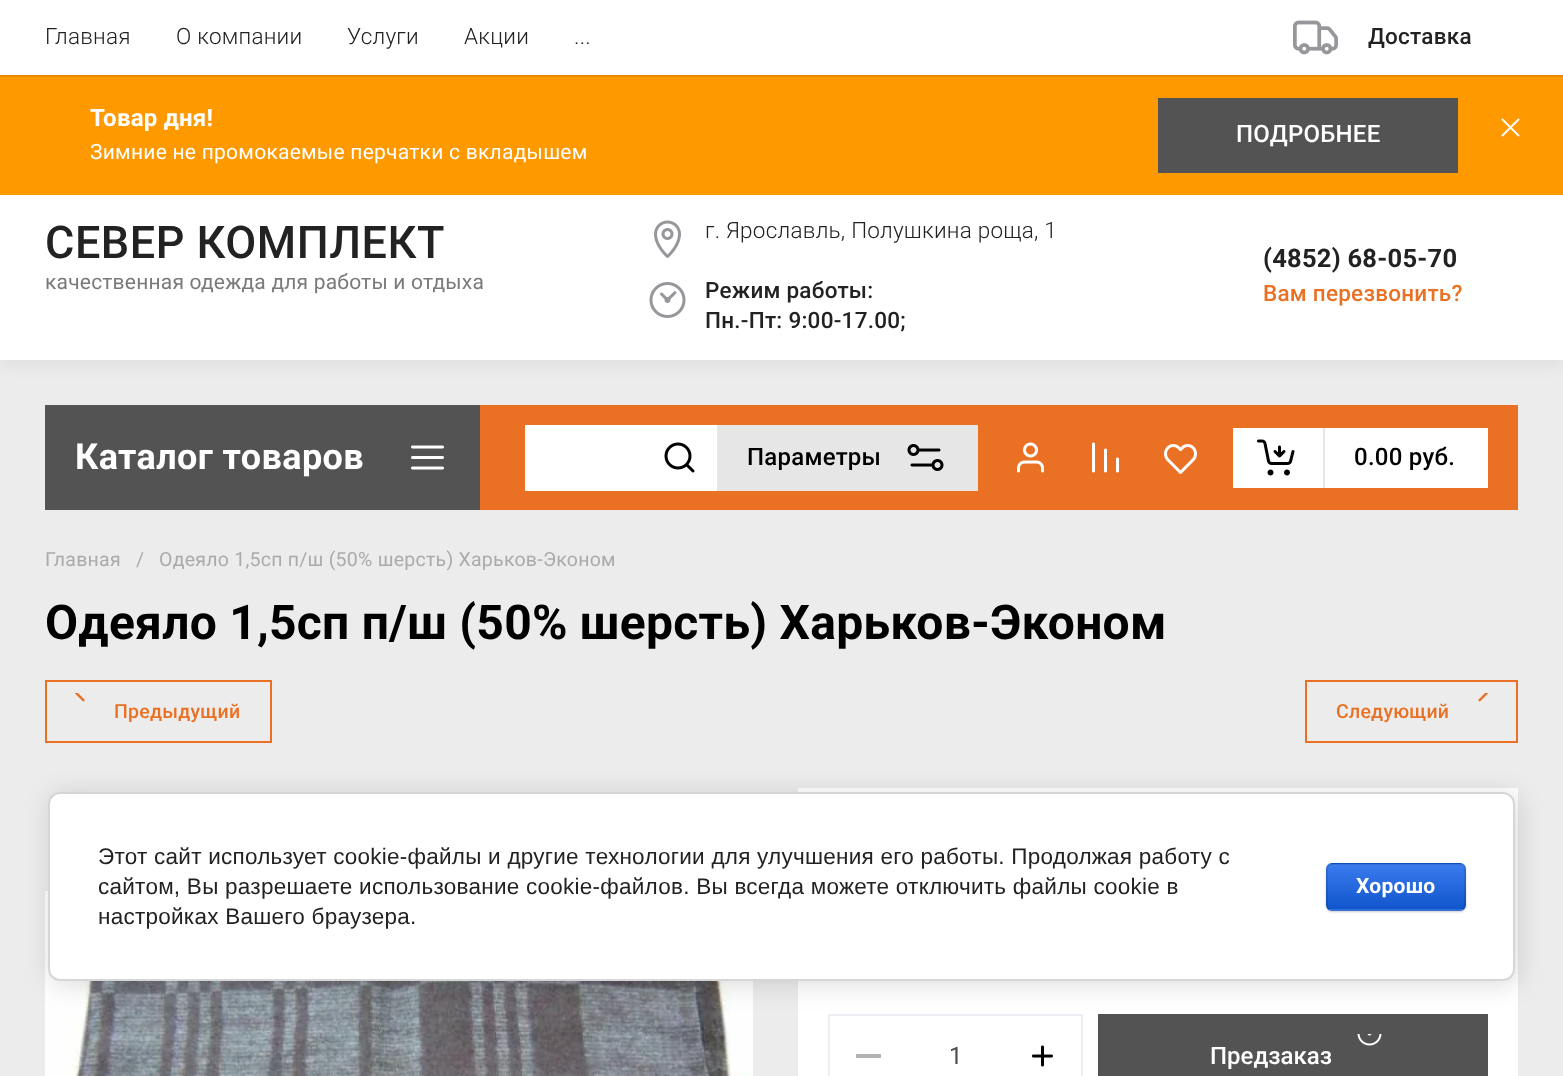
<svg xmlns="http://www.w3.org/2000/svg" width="1563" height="1076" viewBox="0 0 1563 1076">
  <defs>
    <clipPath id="clip1"><rect x="1326" y="863" width="140" height="48" rx="6"/></clipPath>
    <linearGradient id="g1" gradientUnits="userSpaceOnUse" x1="1396" y1="819" x2="1396" y2="864"><stop offset="0" stop-color="rgb(59,124,239)"/><stop offset="1" stop-color="rgb(17,85,204)"/></linearGradient>
    <linearGradient id="g2" gradientUnits="userSpaceOnUse" x1="1396" y1="864" x2="1396" y2="909"><stop offset="0" stop-color="rgb(59,124,239)"/><stop offset="1" stop-color="rgb(17,85,204)"/></linearGradient>
    <linearGradient id="g3" gradientUnits="userSpaceOnUse" x1="1396" y1="909" x2="1396" y2="954"><stop offset="0" stop-color="rgb(59,124,239)"/><stop offset="1" stop-color="rgb(17,85,204)"/></linearGradient>
  </defs>
  <rect width="100%" height="100%" fill="rgb(236,236,236)"/>
  <rect x="0" y="6" width="1563" height="360" fill="rgba(0,0,0,0.05)" filter="blur(7.5px)"/>
  <rect x="0" y="0" width="1563" height="360" fill="rgb(255,255,255)"/>
  <g font-family="Roboto" font-size="22.5" font-weight="300" letter-spacing="0.25" fill="rgb(34,34,34)">
    <text x="45" y="44">Главная</text>
    <text x="176" y="44">О компании</text>
    <text x="347" y="44">Услуги</text>
    <text x="464" y="44">Акции</text>
    <text x="574" y="44">...</text>
  </g>
  <image x="1293" y="20" width="45" height="35" href="pic1.png"/>
  <text x="1368" y="44" font-family="Roboto" font-size="22.5" font-weight="500" letter-spacing="0.25" fill="rgb(34,34,34)">Доставка</text>
  <rect x="0" y="75" width="1563" height="2" fill="rgb(230,138,0)"/>
  <rect x="0" y="77" width="1563" height="118" fill="rgb(255,153,0)"/>
  <text x="90" y="126" font-family="Roboto" font-size="24" font-weight="bold" letter-spacing="0.25" fill="rgb(255,255,255)">Товар дня!</text>
  <text x="90" y="159" font-family="Roboto" font-size="21" letter-spacing="0.25" fill="rgb(255,255,255)">Зимние не промокаемые перчатки с вкладышем</text>
  <rect x="1158" y="98" width="300" height="75" fill="rgb(84,83,83)"/>
  <text x="1236" y="142" font-family="Roboto" font-size="24" font-weight="500" letter-spacing="0.25" fill="rgb(255,255,255)">ПОДРОБНЕЕ</text>
  <image x="1501" y="118" width="19" height="19" href="pic2.png"/>
  <text x="45" y="258" font-family="Roboto" font-size="45" font-weight="500" letter-spacing="0.5" fill="rgb(34,34,34)">СЕВЕР КОМПЛЕКТ</text>
  <text x="45" y="289" font-family="Roboto" font-size="21" letter-spacing="0.2" fill="rgb(122,122,122)">качественная одежда для работы и отдыха</text>
  <image x="654" y="220" width="27" height="38" href="pic3.png"/>
  <text x="705" y="238" font-family="Roboto" font-size="22.5" font-weight="300" letter-spacing="0.25" fill="rgb(34,34,34)">г. Ярославль, Полушкина роща, 1</text>
  <image x="649" y="282" width="37" height="36" href="pic4.png"/>
  <g font-family="Roboto" font-size="22.5" font-weight="500" letter-spacing="0.25" fill="rgb(34,34,34)">
    <text>
      <tspan x="705" y="298">Режим работы:</tspan>
      <tspan x="705" y="328">Пн.-Пт: 9:00-17.00;</tspan>
    </text>
  </g>
  <text x="1263" y="267" font-family="Roboto" font-size="25.5" font-weight="bold" letter-spacing="0.25" fill="rgb(34,34,34)">(4852) 68-05-70</text>
  <text x="1263" y="301" font-family="Roboto" font-size="22.5" font-weight="500" letter-spacing="0.25" fill="rgb(234,112,35)">Вам перезвонить?</text>
  <rect x="45" y="405" width="435" height="105" fill="rgb(84,83,83)"/>
  <text x="75" y="469" font-family="Roboto" font-size="36" font-weight="bold" letter-spacing="0.4" fill="rgb(255,255,255)">Каталог товаров</text>
  <image x="411" y="445" width="33" height="25" href="pic5.png"/>
  <rect x="480" y="405" width="1038" height="105" fill="rgb(234,112,35)"/>
  <rect x="525" y="425" width="192" height="66" fill="rgb(255,255,255)"/>
  <image x="664" y="442" width="31" height="31" href="pic6.png"/>
  <rect x="717" y="425" width="261" height="66" fill="rgb(230,230,230)"/>
  <text x="747" y="465" font-family="Roboto" font-size="24" font-weight="500" letter-spacing="0.25" fill="rgb(0,0,0)">Параметры</text>
  <image x="907" y="444" width="37" height="27" href="pic7.png"/>
  <image x="1017" y="442" width="27" height="31" href="pic8.png"/>
  <image x="1092" y="442" width="27" height="31" href="pic9.png"/>
  <image x="1164" y="444" width="33" height="30" href="pic10.png"/>
  <rect x="1233" y="428" width="255" height="60" fill="rgb(255,255,255)"/>
  <image x="1257" y="439" width="38" height="37" href="pic11.png"/>
  <rect x="1323" y="428" width="2" height="60" fill="rgb(230,230,230)"/>
  <text x="1354" y="465" font-family="Roboto" font-size="24" font-weight="500" letter-spacing="0.25" fill="rgb(0,0,0)">0.00 руб.</text>
  <g font-family="Roboto" font-size="19.5" letter-spacing="0.25" fill="rgb(170,170,171)">
    <text x="45" y="566">Главная</text>
    <text x="136" y="566">/</text>
    <text x="159" y="566">Одеяло 1,5сп п/ш (50% шерсть) Харьков-Эконом</text>
  </g>
  <text x="45" y="639" font-family="Roboto" font-size="48" font-weight="bold" letter-spacing="0.25" fill="rgb(0,0,0)">Одеяло 1,5сп п/ш (50% шерсть) Харьков-Эконом</text>
  <rect x="46" y="681" width="225" height="61" fill="none" stroke="rgb(234,112,35)" stroke-width="2"/>
  <image x="75" y="693" width="10" height="9" href="pic12.png"/>
  <text x="114" y="718" font-family="Roboto" font-size="19.5" font-weight="500" letter-spacing="0.25" fill="rgb(234,112,35)">Предыдущий</text>
  <rect x="1306" y="681" width="211" height="61" fill="none" stroke="rgb(234,112,35)" stroke-width="2"/>
  <image x="1478" y="693" width="10" height="9" href="pic13.png"/>
  <text x="1336" y="718" font-family="Roboto" font-size="19.5" font-weight="500" letter-spacing="0.25" fill="rgb(234,112,35)">Следующий</text>
  <image x="45" y="891" width="708" height="185" href="pic14.png"/>
  <rect x="798" y="788" width="720" height="288" fill="rgb(255,255,255)"/>
  <rect x="829" y="1015" width="253" height="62" fill="none" stroke="rgb(237,237,243)" stroke-width="2"/>
  <rect x="856" y="1054" width="25" height="4" fill="rgb(179,179,179)"/>
  <text x="949" y="1064" font-family="Roboto" font-size="24" fill="rgb(77,77,77)">1</text>
  <image x="1032" y="1045" width="21" height="22" href="pic15.png"/>
  <rect x="1098" y="1014" width="390" height="62" fill="rgb(84,83,83)"/>
  <image x="1357" y="1034" width="25" height="12" href="pic16.png"/>
  <text x="1210" y="1064" font-family="Roboto" font-size="24" font-weight="500" fill="rgb(255,255,255)">Предзаказ</text>
  <rect x="51" y="795" width="1467" height="189" rx="12" fill="rgba(0,0,0,0.14)" filter="blur(13.5px)"/>
  <rect x="49" y="793" width="1465" height="187" rx="11" fill="rgb(255,255,255)" stroke="rgb(214,214,214)" stroke-width="2"/>
  <g font-family="Liberation Sans" font-size="22.5" letter-spacing="0.25" fill="rgb(34,34,34)">
    <text>
      <tspan x="98" y="864">Этот сайт использует cookie-файлы и другие технологии для улучшения его работы. Продолжая работу с</tspan>
      <tspan x="98" y="894">сайтом, Вы разрешаете использование cookie-файлов. Вы всегда можете отключить файлы cookie в</tspan>
      <tspan x="98" y="924">настройках Вашего браузера.</tspan>
    </text>
  </g>
  <rect x="1326" y="864" width="140" height="48" rx="6" fill="rgba(0,0,0,0.2)" filter="blur(1px)"/>
  <g clip-path="url(#clip1)">
    <rect x="1326" y="863" width="140" height="1" fill="url(#g1)"/>
    <rect x="1326" y="864" width="140" height="45" fill="url(#g2)"/>
    <rect x="1326" y="909" width="140" height="2" fill="url(#g3)"/>
  </g>
  <rect x="1327" y="864" width="138" height="46" rx="5" fill="none" stroke="rgba(0,0,0,0.1)" stroke-width="2"/>
  <text x="1356" y="893" font-family="Roboto" font-size="21" font-weight="bold" letter-spacing="0.25" fill="rgb(255,255,255)">Хорошо</text>
</svg>
